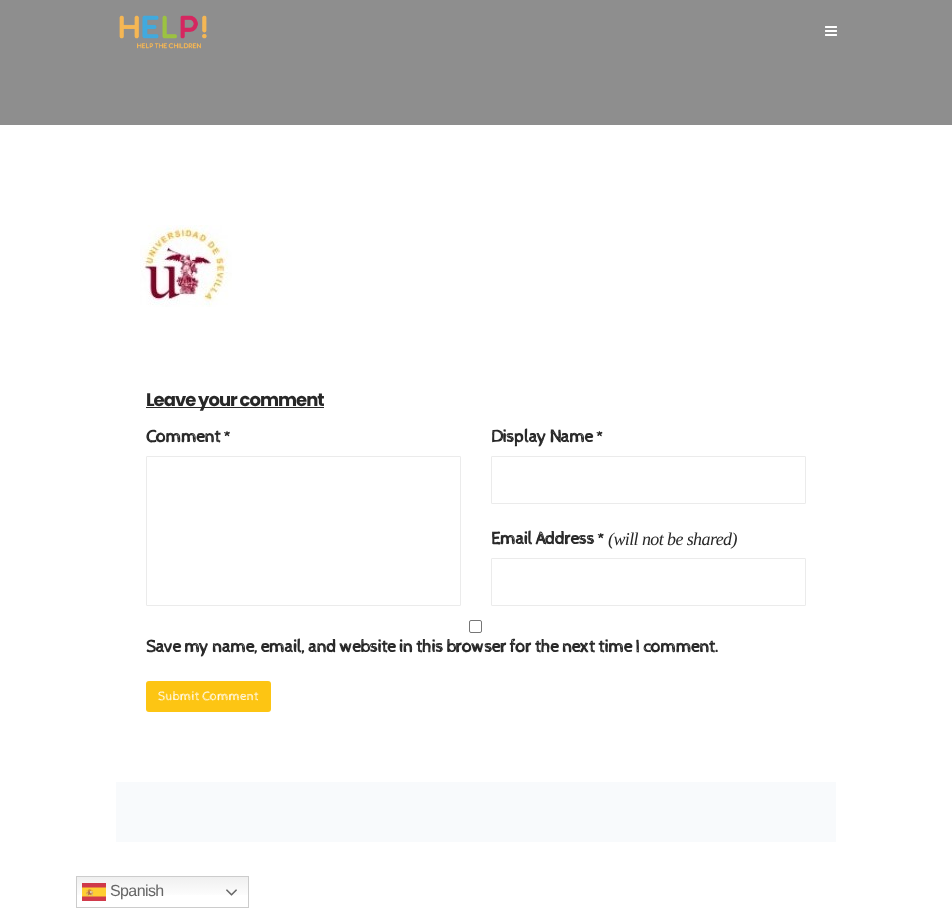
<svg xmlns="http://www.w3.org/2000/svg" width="952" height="908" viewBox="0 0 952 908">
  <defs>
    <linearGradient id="g1" gradientUnits="userSpaceOnUse" x1="163" y1="876" x2="163" y2="908"><stop offset="0" stop-color="rgb(239,239,239)"/><stop offset="0.7" stop-color="rgb(255,255,255)"/></linearGradient>
  </defs>
  <rect width="100%" height="100%" fill="rgb(255,255,255)"/>
  <rect x="0" y="0" width="952" height="125" fill="rgb(142,142,142)"/>
  <image x="119" y="15" width="88" height="34" href="pic1.png"/>
  <image x="825" y="26" width="12" height="10" href="pic2.png"/>
  <image x="140" y="225" width="92" height="82" href="pic3.png"/>
  <rect x="146" y="407" width="178" height="1" fill="rgb(40,40,40)"/>
  <text x="146" y="406" font-family="Poppins" font-size="18" font-weight="bold" letter-spacing="-1" fill="rgb(40,40,40)">Leave your comment</text>
  <text x="146" y="442" font-family="Cabin Sketch" font-size="18" font-weight="bold" letter-spacing="-0.6" fill="rgb(40,40,40)">Comment *</text>
  <rect x="146.5" y="456.5" width="314" height="149" rx="0.5" fill="none" stroke="rgb(235,235,235)"/>
  <text x="491" y="442" font-family="Cabin Sketch" font-size="18" font-weight="bold" letter-spacing="-0.6" fill="rgb(40,40,40)">Display Name *</text>
  <rect x="491.5" y="456.5" width="314" height="47" rx="0.5" fill="none" stroke="rgb(235,235,235)"/>
  <text x="491" y="544" font-family="Cabin Sketch" font-size="18" font-weight="bold" letter-spacing="-0.6" fill="rgb(40,40,40)">Email Address *</text>
  <text x="608" y="545" font-family="Liberation Serif" font-size="18" font-style="italic" letter-spacing="-0.6" fill="rgb(40,40,40)">(will not be shared)</text>
  <rect x="491.5" y="558.5" width="314" height="47" rx="0.5" fill="none" stroke="rgb(235,235,235)"/>
  <rect x="469.5" y="620.5" width="12" height="12" rx="1.5" fill="none" stroke="rgb(118,118,118)"/>
  <text x="146" y="652" font-family="Cabin Sketch" font-size="18" font-weight="bold" letter-spacing="-0.6" fill="rgb(40,40,40)">Save my name, email, and website in this browser for the next time I comment.</text>
  <rect x="146" y="681" width="125" height="31" rx="3" fill="rgb(253,197,19)"/>
  <text x="158" y="700" font-family="Cabin Sketch" font-size="13" fill="rgb(255,255,255)">Submit Comment</text>
  <rect x="116" y="782" width="720" height="60" fill="rgb(248,250,252)"/>
  <rect x="77" y="877" width="171" height="18" fill="url(#g1)"/>
  <rect x="76.5" y="876.5" width="172" height="31" fill="none" stroke="rgb(204,204,204)"/>
  <image x="82" y="883" width="24" height="18" href="pic4.png"/>
  <text x="110" y="896" font-family="Liberation Sans" font-size="16" letter-spacing="-0.6" fill="rgb(102,102,102)">Spanish</text>
  <image x="226" y="889" width="11" height="7" href="pic5.png"/>
</svg>
